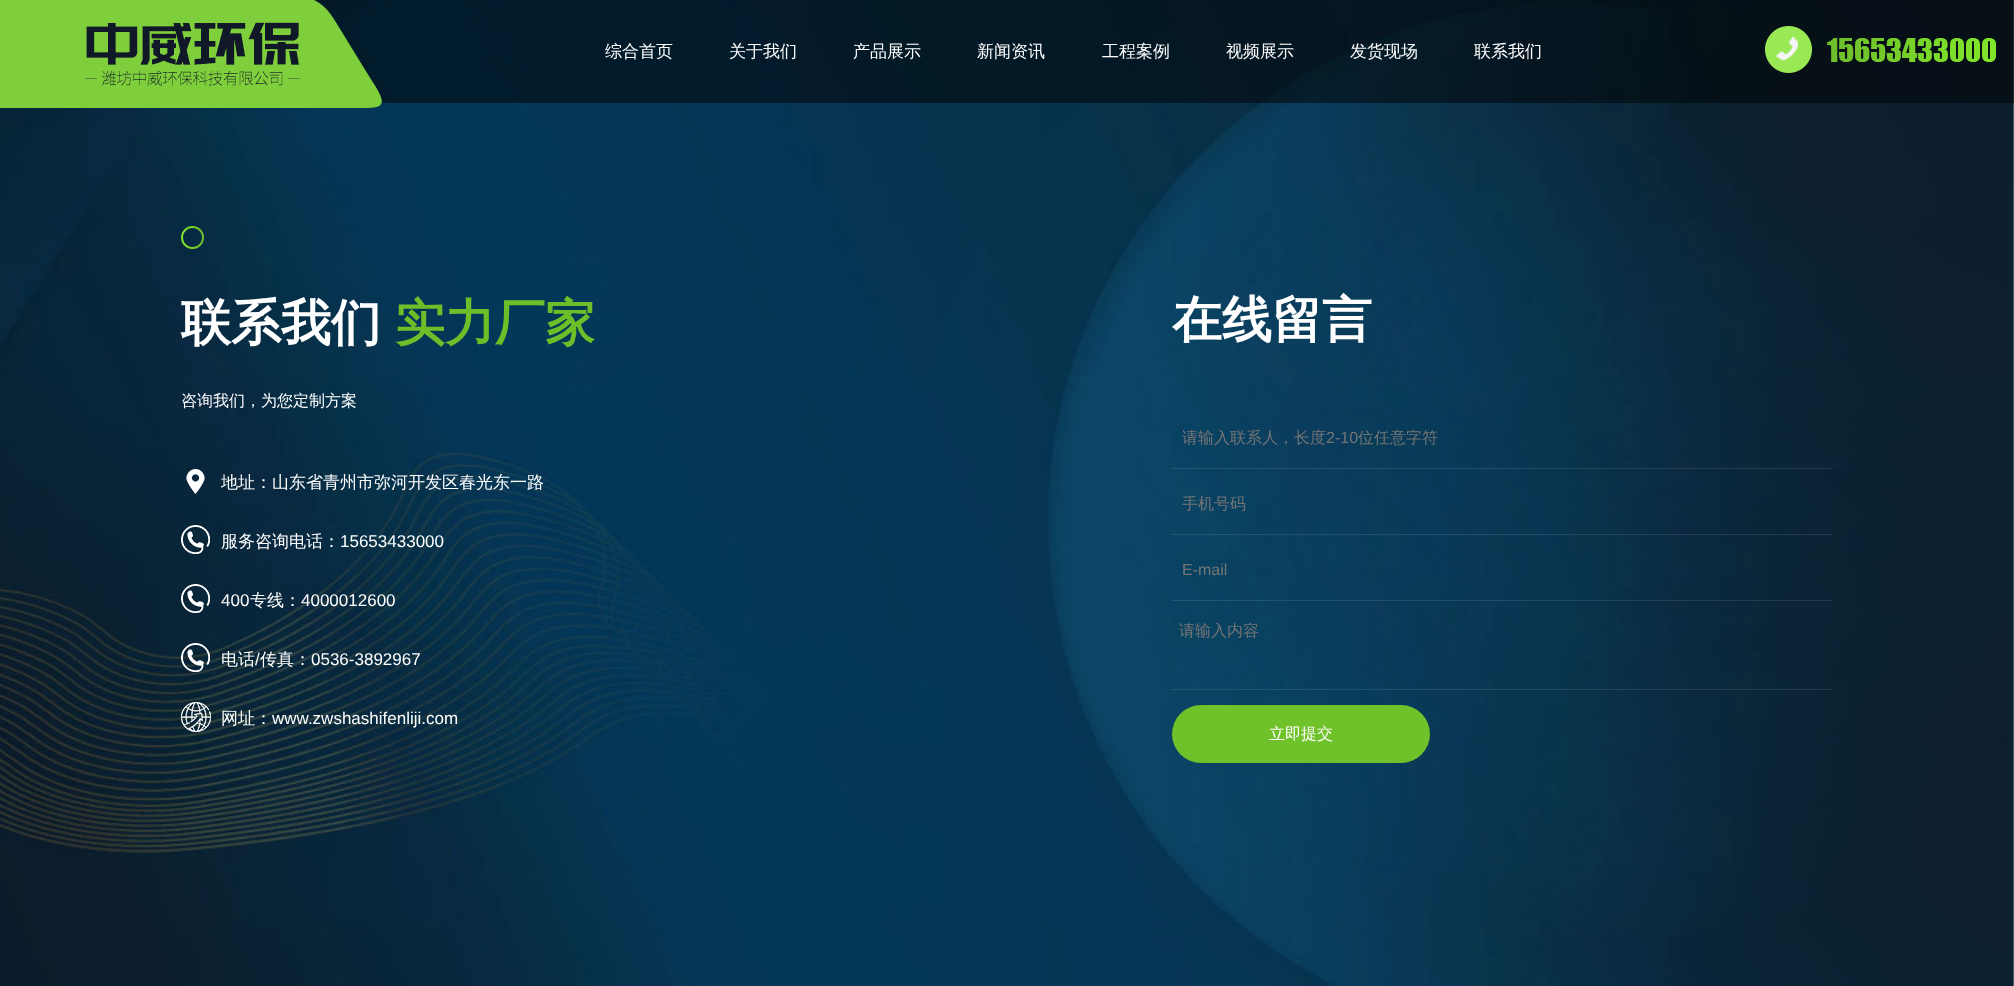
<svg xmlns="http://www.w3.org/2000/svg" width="2014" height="986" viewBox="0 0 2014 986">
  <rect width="100%" height="100%" fill="rgb(255,255,255)"/>
  <image x="0" y="0" width="2014" height="986" href="pic3.png"/>
  <rect x="314" y="0" width="1700" height="103" fill="rgba(0,0,0,0.5)"/>
  <image x="0" y="0" width="382" height="108" href="pic1.png"/>
  <g font-family="WenQuanYi Zen Hei" font-size="17" font-weight="500" fill="rgb(255,255,255)">
    <text x="605" y="57">综合首页</text>
    <text x="729" y="57">关于我们</text>
    <text x="853" y="57">产品展示</text>
    <text x="977" y="57">新闻资讯</text>
    <text x="1102" y="57">工程案例</text>
    <text x="1226" y="57">视频展示</text>
    <text x="1350" y="57">发货现场</text>
    <text x="1474" y="57">联系我们</text>
  </g>
  <image x="1765" y="26" width="231" height="47" href="pic2.png"/>
  <image x="181" y="226" width="23" height="23" href="pic4.png"/>
  <text x="181" y="340" font-family="WenQuanYi Zen Hei" font-size="50" font-weight="bold" fill="rgb(255,255,255)">联系我们</text>
  <text x="395" y="340" font-family="WenQuanYi Zen Hei" font-size="50" font-weight="bold" fill="rgb(110,190,42)">实力厂家</text>
  <text x="181" y="406" font-family="WenQuanYi Zen Hei" font-size="16" font-weight="500" fill="rgb(255,255,255)">咨询我们，为您定制方案</text>
  <image x="186" y="469" width="19" height="25" href="pic5.png"/>
  <text x="221" y="488" font-family="WenQuanYi Zen Hei" font-size="17" font-weight="500" fill="rgb(255,255,255)">地址：山东省青州市弥河开发区春光东一路</text>
  <image x="181" y="525" width="29" height="29" href="pic6.png"/>
  <text x="221" y="547" font-family="WenQuanYi Zen Hei" font-size="17" font-weight="500" fill="rgb(255,255,255)">服务咨询电话：</text>
  <text x="340" y="547" font-family="Liberation Sans" font-size="17" fill="rgb(255,255,255)">15653433000</text>
  <image x="181" y="584" width="29" height="29" href="pic7.png"/>
  <text x="221" y="606" font-family="Liberation Sans" font-size="17" fill="rgb(255,255,255)">400</text>
  <text x="250" y="606" font-family="WenQuanYi Zen Hei" font-size="17" font-weight="500" fill="rgb(255,255,255)">专线：</text>
  <text x="301" y="606" font-family="Liberation Sans" font-size="17" fill="rgb(255,255,255)">4000012600</text>
  <image x="181" y="643" width="29" height="29" href="pic8.png"/>
  <text x="221" y="665" font-family="WenQuanYi Zen Hei" font-size="17" font-weight="500" fill="rgb(255,255,255)">电话</text>
  <text x="255" y="665" font-family="Liberation Sans" font-size="17" fill="rgb(255,255,255)">/</text>
  <text x="260" y="665" font-family="WenQuanYi Zen Hei" font-size="17" font-weight="500" fill="rgb(255,255,255)">传真：</text>
  <text x="311" y="665" font-family="Liberation Sans" font-size="17" fill="rgb(255,255,255)">0536-3892967</text>
  <image x="181" y="702" width="30" height="30" href="pic9.png"/>
  <text x="221" y="724" font-family="WenQuanYi Zen Hei" font-size="17" font-weight="500" fill="rgb(255,255,255)">网址：</text>
  <text x="272" y="724" font-family="Liberation Sans" font-size="17" fill="rgb(255,255,255)">www.zwshashifenliji.com</text>
  <text x="1172" y="337" font-family="WenQuanYi Zen Hei" font-size="50" font-weight="bold" fill="rgb(255,255,255)">在线留言</text>
  <rect x="1172" y="468" width="661" height="1" fill="rgba(255,255,255,0.1)"/>
  <text x="1182" y="443" font-family="WenQuanYi Zen Hei" font-size="16" font-weight="500" fill="rgb(117,117,117)">请输入联系人，长度</text>
  <text x="1326" y="443" font-family="Liberation Sans" font-size="16" fill="rgb(117,117,117)">2-10</text>
  <text x="1358" y="443" font-family="WenQuanYi Zen Hei" font-size="16" font-weight="500" fill="rgb(117,117,117)">位任意字符</text>
  <rect x="1172" y="534" width="661" height="1" fill="rgba(255,255,255,0.1)"/>
  <text x="1182" y="509" font-family="WenQuanYi Zen Hei" font-size="16" font-weight="500" fill="rgb(117,117,117)">手机号码</text>
  <rect x="1172" y="600" width="661" height="1" fill="rgba(255,255,255,0.1)"/>
  <text x="1182" y="575" font-family="Liberation Sans" font-size="16" fill="rgb(117,117,117)">E-mail</text>
  <rect x="1172" y="689" width="661" height="1" fill="rgba(255,255,255,0.1)"/>
  <text x="1179" y="636" font-family="WenQuanYi Zen Hei" font-size="16" font-weight="500" fill="rgb(117,117,117)">请输入内容</text>
  <rect x="1172" y="705" width="258" height="58" rx="29" fill="rgb(112,194,42)"/>
  <text x="1269" y="739" font-family="WenQuanYi Zen Hei" font-size="16" font-weight="500" fill="rgb(255,255,255)">立即提交</text>
</svg>
